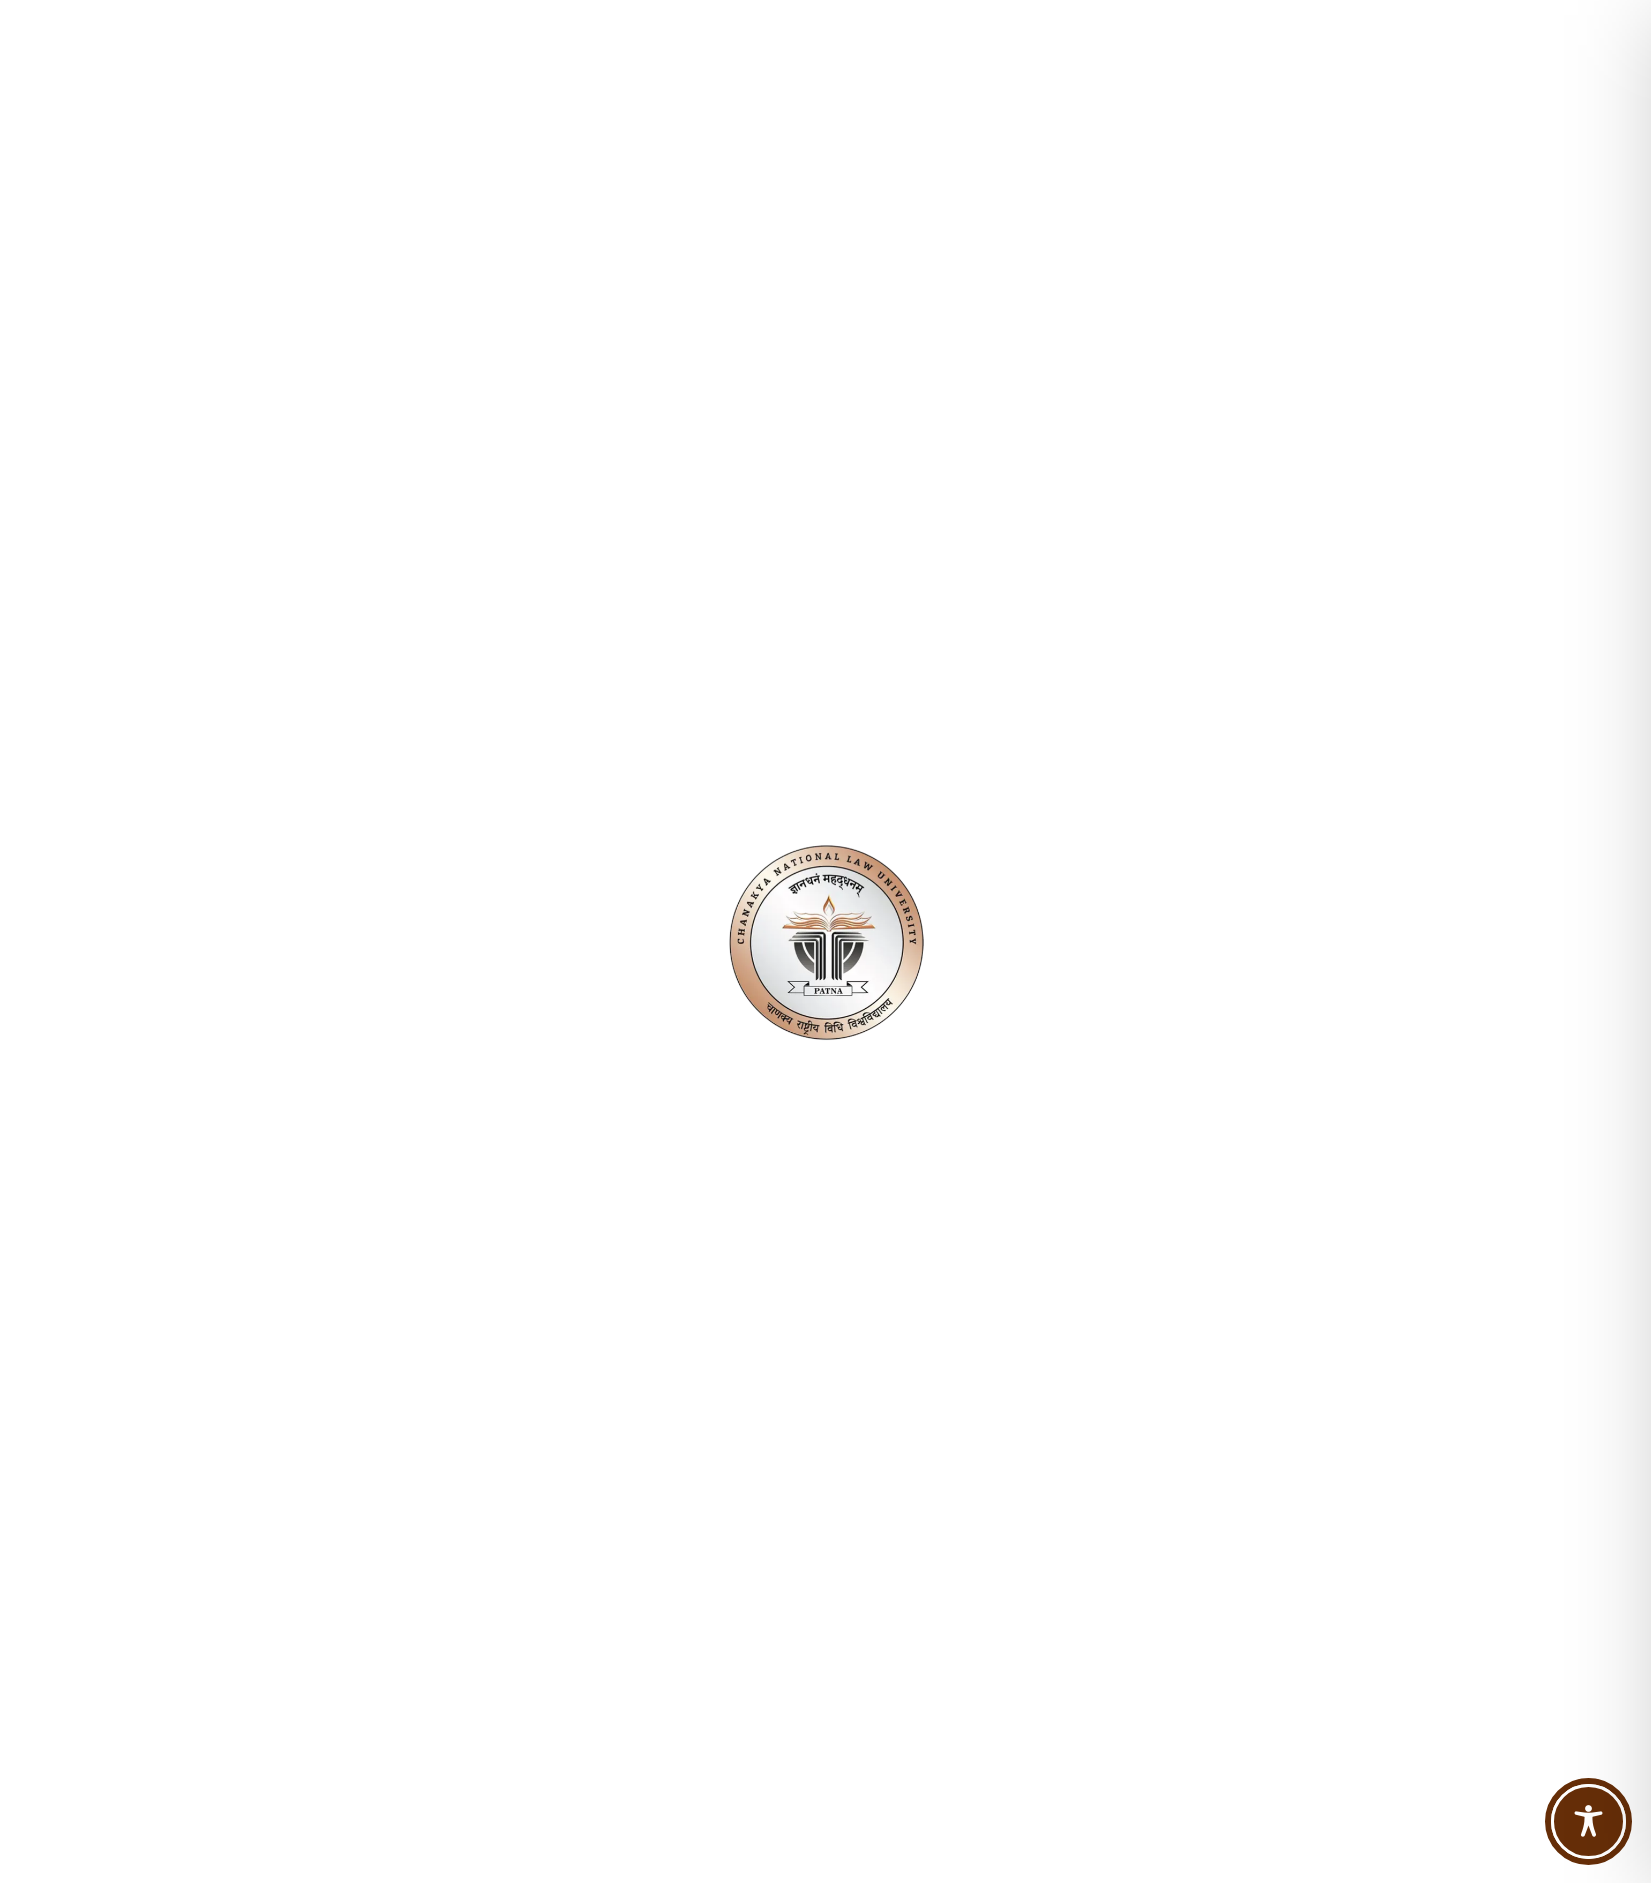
<svg xmlns="http://www.w3.org/2000/svg" width="1651" height="1883" viewBox="0 0 1651 1883">
  <rect width="100%" height="100%" fill="rgb(255,255,255)"/>
  <image x="729" y="845" width="195" height="196" href="pic1.png"/>
  <circle cx="1588.5" cy="1821.5" r="40.5" fill="none" stroke="rgb(102,46,8)" stroke-width="6"/>
  <circle cx="1588.5" cy="1821.5" r="36" fill="rgb(102,46,8)" stroke="rgb(255,255,255)" stroke-width="3"/>
  <image x="1574" y="1805" width="29" height="32" href="pic2.png"/>
  <rect x="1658" y="15" width="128" height="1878" fill="rgba(0,0,0,0.2)" filter="blur(45px)"/>
</svg>
